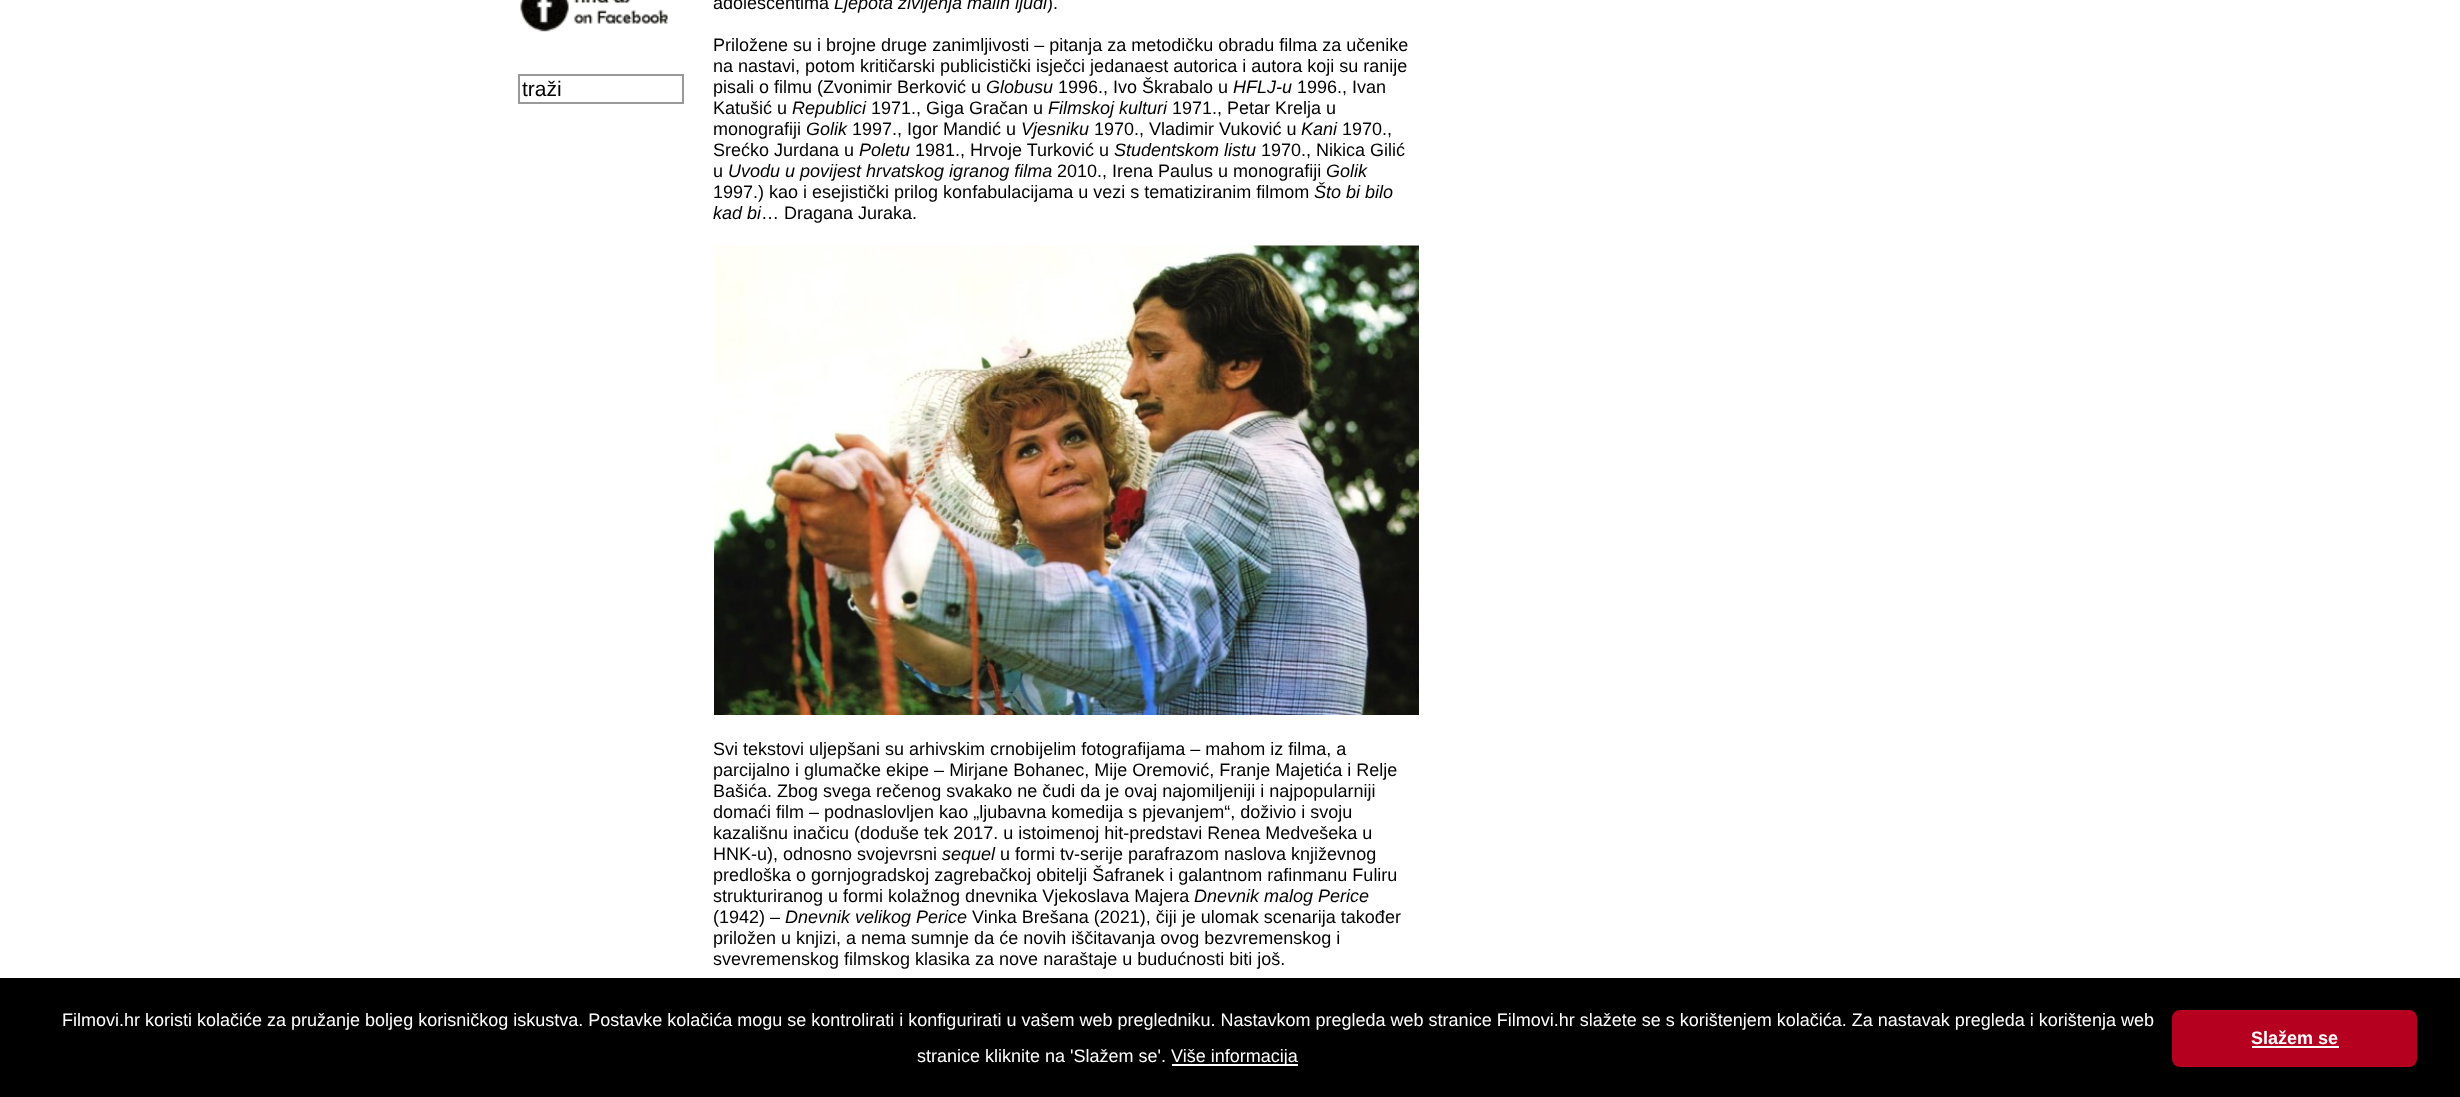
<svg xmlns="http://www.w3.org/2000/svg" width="2460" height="1097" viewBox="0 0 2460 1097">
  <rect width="100%" height="100%" fill="rgb(255,255,255)"/>
  <image x="520" y="0" width="148" height="32" href="pic1.png"/>
  <rect x="519" y="75" width="164" height="28" fill="none" stroke="rgb(153,153,153)" stroke-width="2"/>
  <text x="522" y="96" font-family="Liberation Sans" font-size="21" fill="rgb(0,0,0)">traži</text>
  <text x="713" y="9" font-family="Liberation Sans" font-size="18" fill="rgb(0,0,0)">adolescentima</text>
  <text x="834" y="9" font-family="Liberation Sans" font-size="18" font-style="italic" fill="rgb(0,0,0)">Ljepota življenja malih ljudi</text>
  <g font-family="Liberation Sans" font-size="18" fill="rgb(0,0,0)">
    <text x="1047" y="9">).</text>
    <text>
      <tspan x="713" y="51">Priložene su i brojne druge zanimljivosti – pitanja za metodičku obradu filma za učenike</tspan>
      <tspan x="713" y="72">na nastavi, potom kritičarski publicistički isječci jedanaest autorica i autora koji su ranije</tspan>
      <tspan x="713" y="93">pisali o filmu (Zvonimir Berković u</tspan>
    </text>
  </g>
  <text x="986" y="93" font-family="Liberation Sans" font-size="18" font-style="italic" fill="rgb(0,0,0)">Globusu</text>
  <text x="1058" y="93" font-family="Liberation Sans" font-size="18" fill="rgb(0,0,0)">1996., Ivo Škrabalo u</text>
  <text x="1233" y="93" font-family="Liberation Sans" font-size="18" font-style="italic" fill="rgb(0,0,0)">HFLJ-u</text>
  <g font-family="Liberation Sans" font-size="18" fill="rgb(0,0,0)">
    <text x="1297" y="93">1996., Ivan</text>
    <text x="713" y="114">Katušić u</text>
  </g>
  <text x="792" y="114" font-family="Liberation Sans" font-size="18" font-style="italic" fill="rgb(0,0,0)">Republici</text>
  <text x="871" y="114" font-family="Liberation Sans" font-size="18" fill="rgb(0,0,0)">1971., Giga Gračan u</text>
  <text x="1048" y="114" font-family="Liberation Sans" font-size="18" font-style="italic" fill="rgb(0,0,0)">Filmskoj kulturi</text>
  <g font-family="Liberation Sans" font-size="18" fill="rgb(0,0,0)">
    <text x="1172" y="114">1971., Petar Krelja u</text>
    <text x="713" y="135">monografiji</text>
  </g>
  <text x="806" y="135" font-family="Liberation Sans" font-size="18" font-style="italic" fill="rgb(0,0,0)">Golik</text>
  <text x="852" y="135" font-family="Liberation Sans" font-size="18" fill="rgb(0,0,0)">1997., Igor Mandić u</text>
  <text x="1021" y="135" font-family="Liberation Sans" font-size="18" font-style="italic" fill="rgb(0,0,0)">Vjesniku</text>
  <text x="1094" y="135" font-family="Liberation Sans" font-size="18" fill="rgb(0,0,0)">1970., Vladimir Vuković u</text>
  <text x="1301" y="135" font-family="Liberation Sans" font-size="18" font-style="italic" fill="rgb(0,0,0)">Kani</text>
  <g font-family="Liberation Sans" font-size="18" fill="rgb(0,0,0)">
    <text x="1342" y="135">1970.,</text>
    <text x="713" y="156">Srećko Jurdana u</text>
  </g>
  <text x="859" y="156" font-family="Liberation Sans" font-size="18" font-style="italic" fill="rgb(0,0,0)">Poletu</text>
  <text x="915" y="156" font-family="Liberation Sans" font-size="18" fill="rgb(0,0,0)">1981., Hrvoje Turković u</text>
  <text x="1114" y="156" font-family="Liberation Sans" font-size="18" font-style="italic" fill="rgb(0,0,0)">Studentskom listu</text>
  <g font-family="Liberation Sans" font-size="18" fill="rgb(0,0,0)">
    <text x="1261" y="156">1970., Nikica Gilić</text>
    <text x="713" y="177">u</text>
  </g>
  <text x="728" y="177" font-family="Liberation Sans" font-size="18" font-style="italic" fill="rgb(0,0,0)">Uvodu u povijest hrvatskog igranog filma</text>
  <text x="1057" y="177" font-family="Liberation Sans" font-size="18" fill="rgb(0,0,0)">2010., Irena Paulus u monografiji</text>
  <text x="1326" y="177" font-family="Liberation Sans" font-size="18" font-style="italic" fill="rgb(0,0,0)">Golik</text>
  <text x="713" y="198" font-family="Liberation Sans" font-size="18" fill="rgb(0,0,0)">1997.) kao i esejistički prilog konfabulacijama u vezi s tematiziranim filmom</text>
  <g font-family="Liberation Sans" font-size="18" font-style="italic" fill="rgb(0,0,0)">
    <text x="1314" y="198">Što bi bilo</text>
    <text x="713" y="219">kad bi</text>
  </g>
  <text x="761" y="219" font-family="Liberation Sans" font-size="18" fill="rgb(0,0,0)">… Dragana Juraka.</text>
  <image x="714" y="245" width="705" height="470" href="pic2.png"/>
  <g font-family="Liberation Sans" font-size="18" fill="rgb(0,0,0)">
    <text>
      <tspan x="713" y="755">Svi tekstovi uljepšani su arhivskim crnobijelim fotografijama – mahom iz filma, a</tspan>
      <tspan x="713" y="776">parcijalno i glumačke ekipe – Mirjane Bohanec, Mije Oremović, Franje Majetića i Relje</tspan>
      <tspan x="713" y="797">Bašića. Zbog svega rečenog svakako ne čudi da je ovaj najomiljeniji i najpopularniji</tspan>
      <tspan x="713" y="818">domaći film – podnaslovljen kao „ljubavna komedija s pjevanjem“, doživio i svoju</tspan>
      <tspan x="713" y="839">kazališnu inačicu (doduše tek 2017. u istoimenoj hit-predstavi Renea Medvešeka u</tspan>
      <tspan x="713" y="860">HNK-u), odnosno svojevrsni</tspan>
    </text>
  </g>
  <text x="942" y="860" font-family="Liberation Sans" font-size="18" font-style="italic" fill="rgb(0,0,0)">sequel</text>
  <g font-family="Liberation Sans" font-size="18" fill="rgb(0,0,0)">
    <text x="1000" y="860">u formi tv-serije parafrazom naslova književnog</text>
    <text>
      <tspan x="713" y="881">predloška o gornjogradskoj zagrebačkoj obitelji Šafranek i galantnom rafinmanu Fuliru</tspan>
      <tspan x="713" y="902">strukturiranog u formi kolažnog dnevnika Vjekoslava Majera</tspan>
    </text>
  </g>
  <text x="1194" y="902" font-family="Liberation Sans" font-size="18" font-style="italic" fill="rgb(0,0,0)">Dnevnik malog Perice</text>
  <text x="713" y="923" font-family="Liberation Sans" font-size="18" fill="rgb(0,0,0)">(1942) –</text>
  <text x="785" y="923" font-family="Liberation Sans" font-size="18" font-style="italic" fill="rgb(0,0,0)">Dnevnik velikog Perice</text>
  <g font-family="Liberation Sans" font-size="18" fill="rgb(0,0,0)">
    <text x="972" y="923">Vinka Brešana (2021), čiji je ulomak scenarija također</text>
    <text>
      <tspan x="713" y="944">priložen u knjizi, a nema sumnje da će novih iščitavanja ovog bezvremenskog i</tspan>
      <tspan x="713" y="965">svevremenskog filmskog klasika za nove naraštaje u budućnosti biti još.</tspan>
    </text>
  </g>
  <rect x="0" y="978" width="2460" height="119" fill="rgb(0,0,0)"/>
  <g font-family="Liberation Sans" font-size="18" fill="rgb(255,255,255)">
    <text x="62" y="1026">Filmovi.hr koristi kolačiće za pružanje boljeg korisničkog iskustva. Postavke kolačića mogu se kontrolirati i konfigurirati u vašem web pregledniku. Nastavkom pregleda web stranice Filmovi.hr slažete se s korištenjem kolačića. Za nastavak pregleda i korištenja web</text>
    <text x="917" y="1062">stranice kliknite na 'Slažem se'.</text>
  </g>
  <rect x="1172" y="1064" width="126" height="2" fill="rgb(255,255,255)"/>
  <text x="1171" y="1062" font-family="Liberation Sans" font-size="18" fill="rgb(255,255,255)">Više informacija</text>
  <rect x="2172" y="1010" width="245" height="57" rx="8" fill="rgb(181,0,31)"/>
  <text x="2251" y="1044" font-family="Liberation Sans" font-size="18" font-weight="bold" fill="rgb(255,255,255)">Slažem se</text>
  <rect x="2252" y="1046" width="87" height="2" fill="rgb(255,255,255)"/>
</svg>
